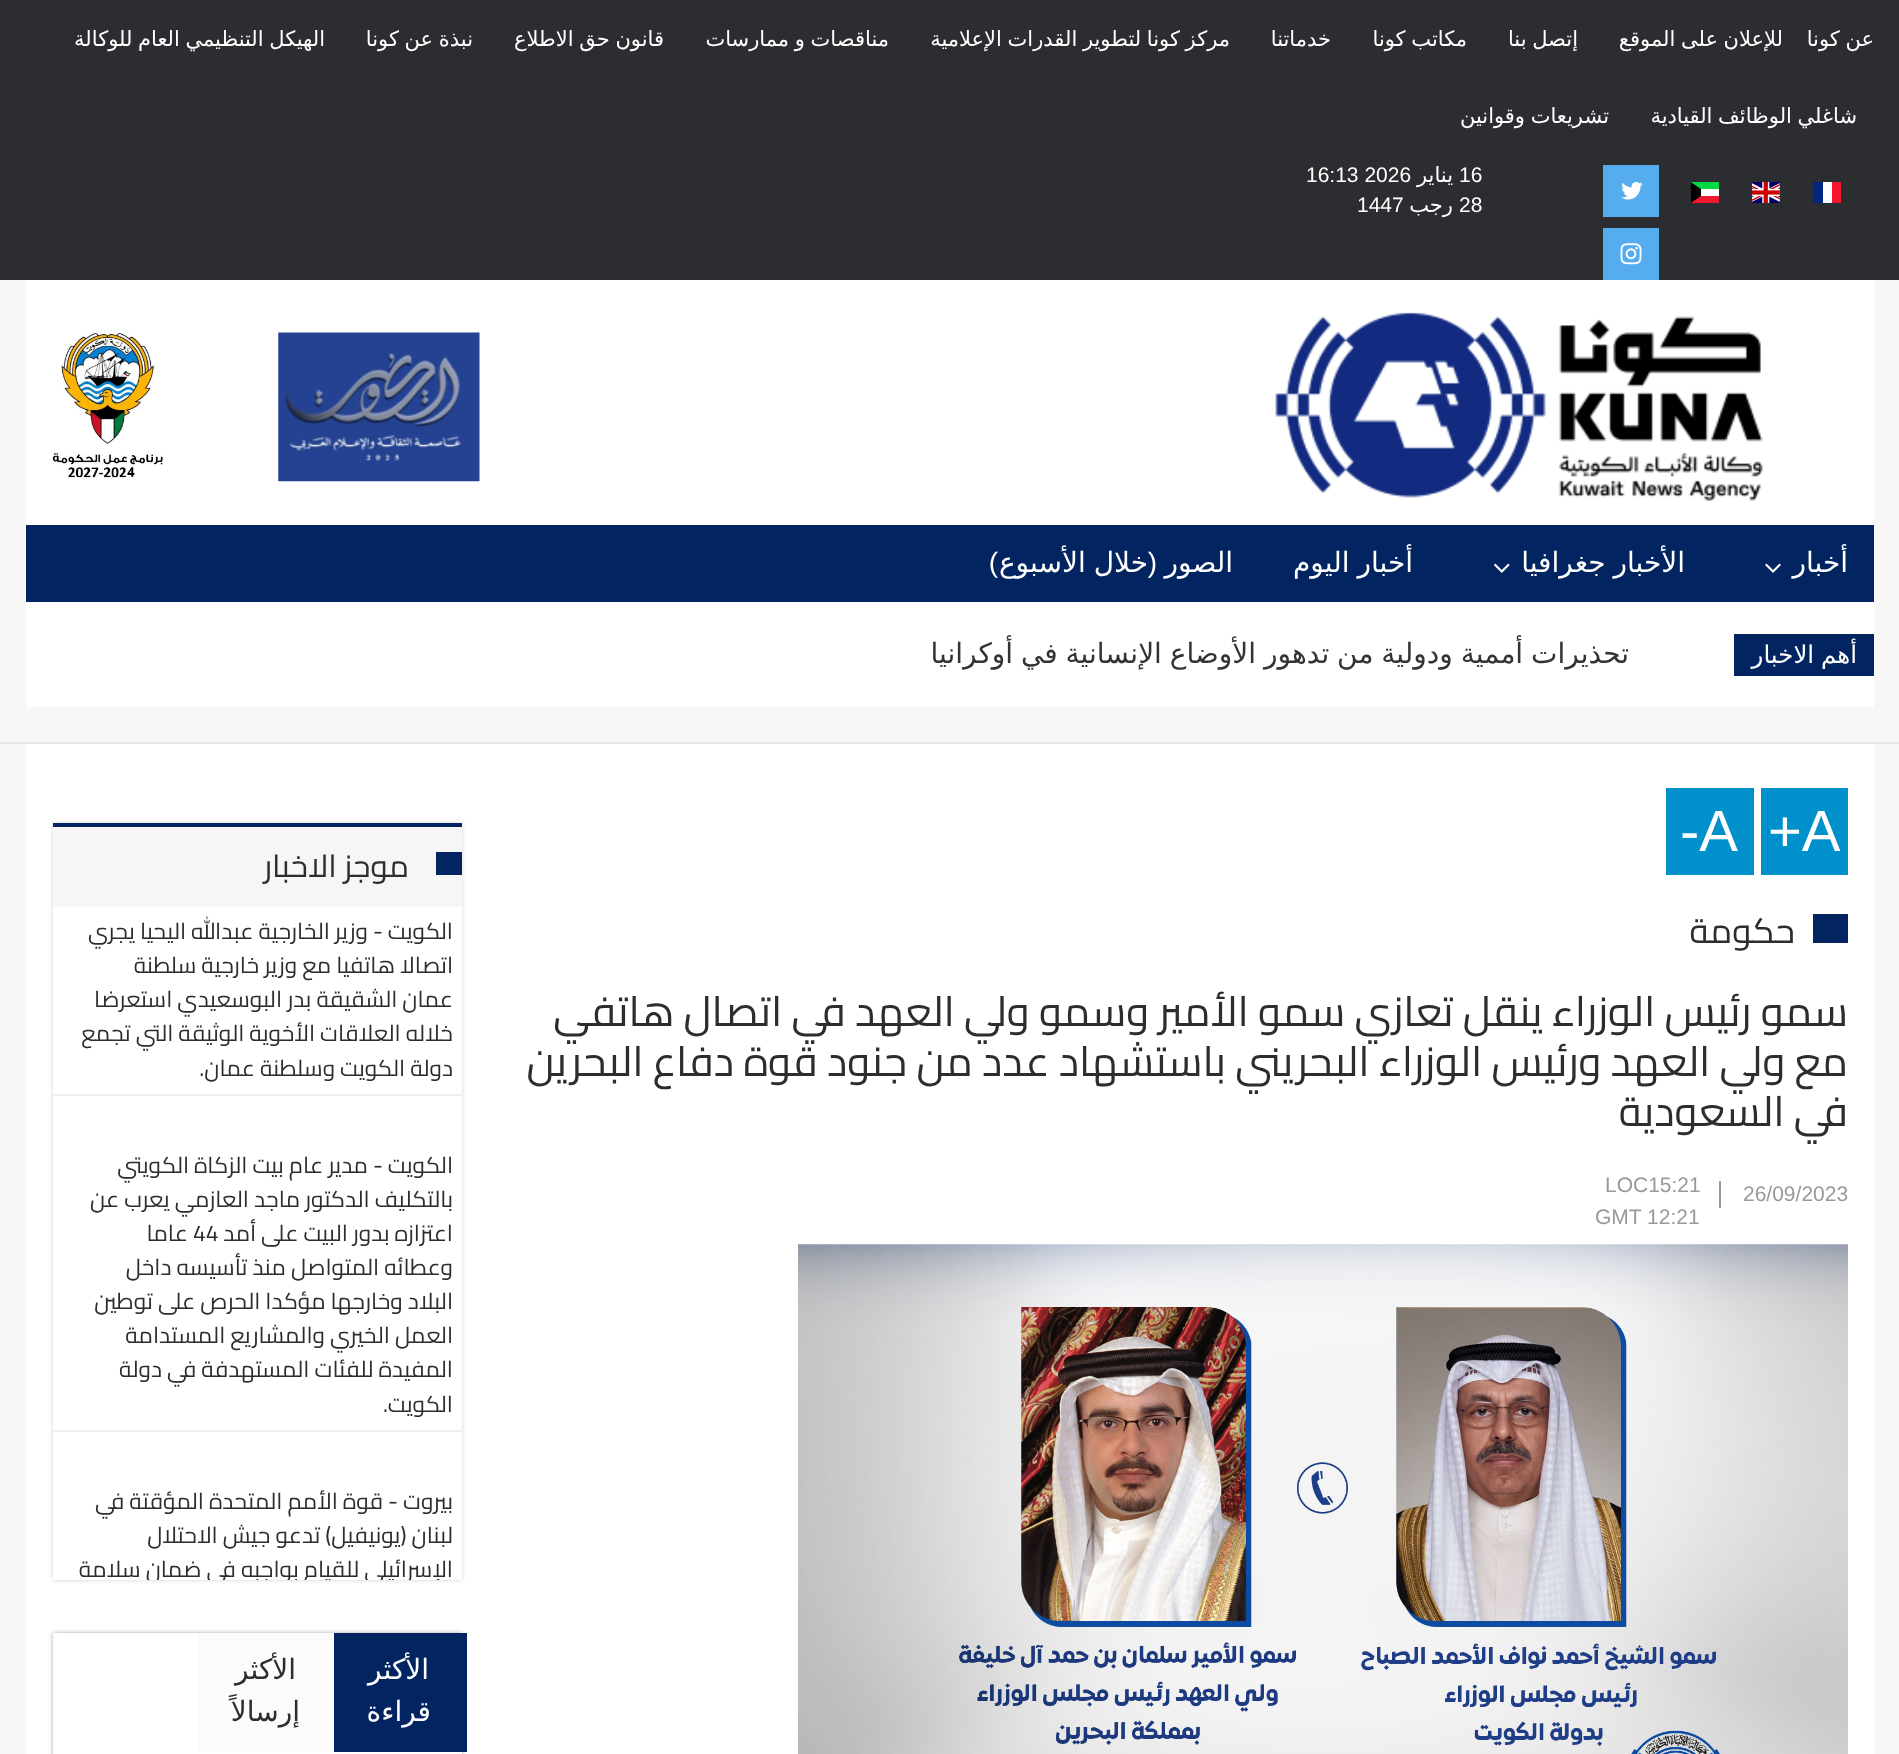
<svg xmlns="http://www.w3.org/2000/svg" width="1899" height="1754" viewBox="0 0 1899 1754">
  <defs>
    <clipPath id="clip1"><rect x="1691" y="182" width="28" height="21"/></clipPath>
    <clipPath id="clip2"><rect x="296" y="620" width="1333" height="70"/></clipPath>
    <clipPath id="clip3"><path d="M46 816H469V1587H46ZM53 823H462V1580H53Z" clip-rule="evenodd"/></clipPath>
    <clipPath id="clip4"><rect x="79" y="1484" width="374" height="96"/></clipPath>
    <clipPath id="clip5"><path d="M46 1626H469V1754H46ZM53 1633H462V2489H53Z" clip-rule="evenodd"/></clipPath>
  </defs>
  <rect width="100%" height="100%" fill="rgb(247,247,247)"/>
  <rect x="0" y="0" width="1899" height="280" fill="rgb(44,45,48)"/>
  <g font-family="DejaVu Sans" font-size="21" direction="rtl" fill="rgb(255,255,255)">
    <text x="1874" y="46" word-spacing="-1">عن كونا</text>
    <text x="1783" y="46" word-spacing="-1">للإعلان على الموقع</text>
    <text x="1578" y="46" word-spacing="-1">إتصل بنا</text>
    <text x="1467" y="46" word-spacing="-1">مكاتب كونا</text>
    <text x="1331" y="46">خدماتنا</text>
    <text x="1230" y="46" word-spacing="-1">مركز كونا لتطوير القدرات الإعلامية</text>
    <text x="889" y="46" word-spacing="-1">مناقصات و ممارسات</text>
    <text x="664" y="46" word-spacing="-1">قانون حق الاطلاع</text>
    <text x="473" y="46" word-spacing="-1">نبذة عن كونا</text>
    <text x="325" y="46" word-spacing="-1">الهيكل التنظيمي العام للوكالة</text>
    <text x="1857" y="123" word-spacing="-1">شاغلي الوظائف القيادية</text>
    <text x="1609" y="123" word-spacing="-1">تشريعات وقوانين</text>
  </g>
  <rect x="1823" y="182" width="9" height="21" fill="rgb(255,255,255)"/>
  <rect x="1813" y="182" width="10" height="21" fill="rgb(0,38,127)"/>
  <rect x="1832" y="182" width="9" height="21" fill="rgb(243,24,48)"/>
  <image x="1752" y="182" width="28" height="21" href="pic1.png"/>
  <rect x="1701" y="189" width="18" height="7" fill="rgb(255,255,255)"/>
  <rect x="1691" y="196" width="28" height="7" fill="rgb(243,24,48)"/>
  <rect x="1691" y="182" width="28" height="7" fill="rgb(0,217,65)"/>
  <g clip-path="url(#clip1)">
    <path d="M1690.5 182V203L1701 196V189Z" fill="rgb(0,0,0)" fill-rule="evenodd"/>
  </g>
  <rect x="1603" y="165" width="56" height="52" fill="rgb(85,172,238)"/>
  <image x="1621" y="182" width="22" height="18" href="pic2.png"/>
  <rect x="1603" y="228" width="56" height="52" fill="rgb(85,172,238)"/>
  <image x="1620" y="243" width="22" height="22" href="pic3.png"/>
  <text x="1459" y="182" font-family="Liberation Sans" font-size="21" fill="rgb(255,255,255)">16</text>
  <text x="1453" y="182" font-family="DejaVu Sans" font-size="21" direction="rtl" fill="rgb(255,255,255)">يناير</text>
  <g font-family="Liberation Sans" font-size="21" fill="rgb(255,255,255)">
    <text x="1306" y="182">16:13 2026</text>
    <text x="1459" y="212">28</text>
  </g>
  <text x="1453" y="212" font-family="DejaVu Sans" font-size="21" direction="rtl" fill="rgb(255,255,255)">رجب</text>
  <text x="1357" y="212" font-family="Liberation Sans" font-size="21" fill="rgb(255,255,255)">1447</text>
  <rect x="26" y="280" width="1848" height="245" fill="rgb(255,255,255)"/>
  <image x="1275" y="312" width="488" height="189" href="pic4.png"/>
  <image x="278" y="332" width="202" height="150" href="pic5.png"/>
  <image x="52" y="332" width="111" height="148" href="pic6.png"/>
  <rect x="26" y="525" width="1848" height="77" fill="rgb(2,37,97)"/>
  <text x="1848" y="572" font-family="DejaVu Sans" font-size="28" direction="rtl" fill="rgb(255,255,255)">أخبار</text>
  <image x="1765" y="563" width="16" height="10" href="pic7.png"/>
  <text x="1685" y="572" word-spacing="-1" font-family="DejaVu Sans" font-size="28" direction="rtl" fill="rgb(255,255,255)">الأخبار جغرافيا</text>
  <image x="1494" y="563" width="16" height="10" href="pic8.png"/>
  <g font-family="DejaVu Sans" font-size="28" direction="rtl" fill="rgb(255,255,255)">
    <text x="1413" y="572" word-spacing="-1">أخبار اليوم</text>
    <text x="1233" y="572">الصور</text>
  </g>
  <text x="1157" y="572" font-family="Liberation Sans" font-size="28" direction="rtl" fill="rgb(255,255,255)">(</text>
  <text x="1148" y="572" word-spacing="-1" font-family="DejaVu Sans" font-size="28" direction="rtl" fill="rgb(255,255,255)">خلال الأسبوع</text>
  <text x="998" y="572" font-family="Liberation Sans" font-size="28" direction="rtl" fill="rgb(255,255,255)">)</text>
  <rect x="0" y="742" width="1899" height="2" fill="rgb(230,230,230)"/>
  <rect x="26" y="602" width="1848" height="105" fill="rgb(255,255,255)"/>
  <rect x="1734" y="634" width="140" height="42" fill="rgb(2,37,97)"/>
  <text x="1857" y="663" word-spacing="-1" font-family="DejaVu Sans" font-size="24.5" direction="rtl" fill="rgb(255,255,255)">أهم الاخبار</text>
  <g clip-path="url(#clip2)">
    <text x="1629" y="663" word-spacing="-1" font-family="DejaVu Sans" font-size="28" direction="rtl" fill="rgb(51,51,51)">تحذيرات أممية ودولية من تدهور الأوضاع الإنسانية في أوكرانيا</text>
  </g>
  <rect x="26" y="744" width="1848" height="44" fill="rgb(255,255,255)"/>
  <rect x="26" y="788" width="1848" height="966" fill="rgb(255,255,255)"/>
  <rect x="1761" y="788" width="87" height="87" fill="rgb(0,144,203)"/>
  <text x="1768" y="851" font-family="Liberation Sans" font-size="58" fill="rgb(255,255,255)">+A</text>
  <rect x="1666" y="788" width="88" height="87" fill="rgb(0,144,203)"/>
  <text x="1680" y="851" font-family="Liberation Sans" font-size="58" fill="rgb(255,255,255)">-A</text>
  <rect x="1813" y="914" width="35" height="29" fill="rgb(2,37,97)"/>
  <text x="1795" y="943" font-family="Cairo" font-size="35" direction="rtl" fill="rgb(44,45,48)">حكومة</text>
  <g font-family="Cairo" font-size="42" direction="rtl" fill="rgb(44,45,48)">
    <text>
      <tspan x="1848" y="1026">سمو رئيس الوزراء ينقل تعازي سمو الأمير وسمو ولي العهد في اتصال هاتفي</tspan>
      <tspan x="1848" y="1076">مع ولي العهد ورئيس الوزراء البحريني باستشهاد عدد من جنود قوة دفاع البحرين</tspan>
      <tspan x="1848" y="1126">في السعودية</tspan>
    </text>
  </g>
  <text x="1743" y="1201" font-family="Liberation Sans" font-size="21" fill="rgb(153,153,153)">26/09/2023</text>
  <rect x="1719" y="1181" width="2" height="27" fill="rgb(153,153,153)"/>
  <g font-family="Liberation Sans" font-size="21" fill="rgb(153,153,153)">
    <text x="1605" y="1192">LOC15:21</text>
    <text x="1595" y="1224">GMT 12:21</text>
  </g>
  <image x="798" y="1244" width="1050" height="510" href="pic9.png"/>
  <g clip-path="url(#clip3)">
    <rect x="53" y="823" width="409" height="757" fill="rgba(0,0,0,0.18)" filter="blur(2px)"/>
  </g>
  <rect x="53" y="827" width="409" height="80" fill="rgb(246,246,246)"/>
  <rect x="53" y="823" width="409" height="4" fill="rgb(2,37,97)"/>
  <rect x="436" y="852" width="26" height="23" fill="rgb(2,37,97)"/>
  <text x="409" y="877" font-family="Cairo" font-size="31.5" direction="rtl" fill="rgb(44,45,48)">موجز الاخبار</text>
  <rect x="53" y="1094" width="409" height="2" fill="rgb(238,238,238)"/>
  <g font-family="Cairo" font-size="22.75" direction="rtl" fill="rgb(44,45,48)">
    <text>
      <tspan x="453" y="939">الكويت - وزير الخارجية عبدالله اليحيا يجري</tspan>
      <tspan x="453" y="973">اتصالا هاتفيا مع وزير خارجية سلطنة</tspan>
      <tspan x="453" y="1007">عمان الشقيقة بدر</tspan>
    </text>
    <text x="282" y="1007">البوسعيدي استعرضا</text>
    <text>
      <tspan x="453" y="1041">خلاله العلاقات الأخوية الوثيقة التي تجمع</tspan>
      <tspan x="453" y="1076">دولة الكويت وسلطنة عمان.</tspan>
    </text>
  </g>
  <rect x="53" y="1430" width="409" height="2" fill="rgb(238,238,238)"/>
  <g font-family="Cairo" font-size="22.75" direction="rtl" fill="rgb(44,45,48)">
    <text>
      <tspan x="453" y="1173">الكويت - مدير عام بيت الزكاة الكويتي</tspan>
      <tspan x="453" y="1207">بالتكليف الدكتور ماجد العازمي يعرب عن</tspan>
      <tspan x="453" y="1241">اعتزازه بدور البيت على أمد</tspan>
    </text>
  </g>
  <text x="193" y="1241" font-family="Cairo" font-size="22.75" fill="rgb(44,45,48)">44</text>
  <g font-family="Cairo" font-size="22.75" direction="rtl" fill="rgb(44,45,48)">
    <text x="188" y="1241">عاما</text>
    <text>
      <tspan x="453" y="1275">وعطائه المتواصل منذ تأسيسه داخل</tspan>
      <tspan x="453" y="1309">البلاد وخارجها مؤكدا الحرص على توطين</tspan>
      <tspan x="453" y="1343">العمل الخيري والمشاريع المستدامة</tspan>
      <tspan x="453" y="1377">المفيدة للفئات المستهدفة في دولة</tspan>
      <tspan x="453" y="1412">الكويت.</tspan>
    </text>
    <text>
      <tspan x="453" y="1509">بيروت - قوة الأمم المتحدة المؤقتة في</tspan>
      <tspan x="453" y="1543">لبنان (يونيفيل) تدعو جيش الاحتلال</tspan>
    </text>
  </g>
  <g clip-path="url(#clip4)">
    <text x="453" y="1577" font-family="Cairo" font-size="22.75" direction="rtl" fill="rgb(44,45,48)">الإسرائيلي للقيام بواجبه في ضمان سلامة</text>
  </g>
  <g clip-path="url(#clip5)">
    <rect x="53" y="1633" width="409" height="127" fill="rgba(0,0,0,0.18)" filter="blur(2px)"/>
    <rect x="53" y="1633" width="409" height="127" fill="rgba(0,0,0,0.18)" filter="blur(2px)"/>
  </g>
  <rect x="334" y="1633" width="133" height="119" fill="rgb(2,37,97)"/>
  <g font-family="DejaVu Sans" font-size="28" direction="rtl" fill="rgb(255,255,255)">
    <text x="429" y="1679">الأكثر</text>
    <text x="431" y="1721">قراءة</text>
  </g>
  <rect x="198" y="1633" width="136" height="119" fill="rgb(251,251,251)"/>
  <g font-family="DejaVu Sans" font-size="28" direction="rtl" fill="rgb(44,45,48)">
    <text x="296" y="1679">الأكثر</text>
    <text x="300" y="1721">إرسالاً</text>
  </g>
</svg>
